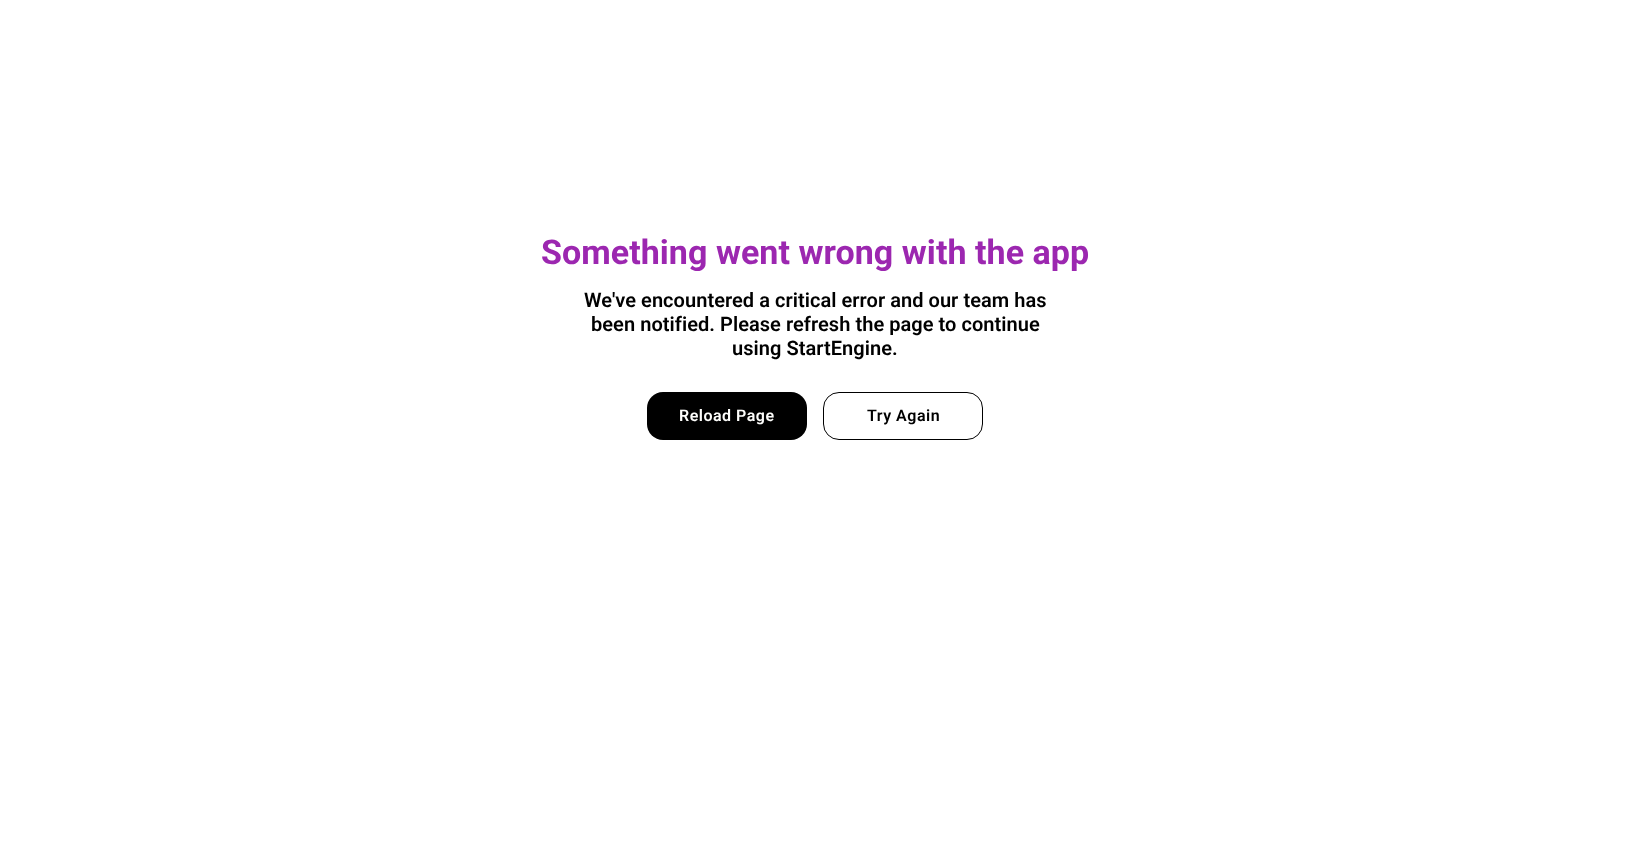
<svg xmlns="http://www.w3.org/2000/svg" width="1630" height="854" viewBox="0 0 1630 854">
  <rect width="100%" height="100%" fill="rgb(255,255,255)"/>
  <text x="541" y="264" font-family="Roboto" font-size="34" font-weight="bold" letter-spacing="0.05" fill="rgb(156,39,176)">Something went wrong with the app</text>
  <g font-family="Roboto" font-size="20" font-weight="600" letter-spacing="0.05" fill="rgb(0,0,0)">
    <text x="584" y="307">We've encountered a critical error and our team has</text>
    <text x="591" y="331">been notified. Please refresh the page to continue</text>
    <text x="732" y="355">using StartEngine.</text>
  </g>
  <rect x="647" y="392" width="160" height="48" rx="16" fill="rgb(0,0,0)"/>
  <text x="679" y="421" font-family="Roboto" font-size="16" font-weight="600" letter-spacing="0.5" fill="rgb(253,253,251)">Reload Page</text>
  <rect x="823.5" y="392.5" width="159" height="47" rx="15.5" fill="none" stroke="rgb(0,0,0)"/>
  <text x="867" y="421" font-family="Roboto" font-size="16" font-weight="600" letter-spacing="0.5" fill="rgb(0,0,0)">Try Again</text>
</svg>
